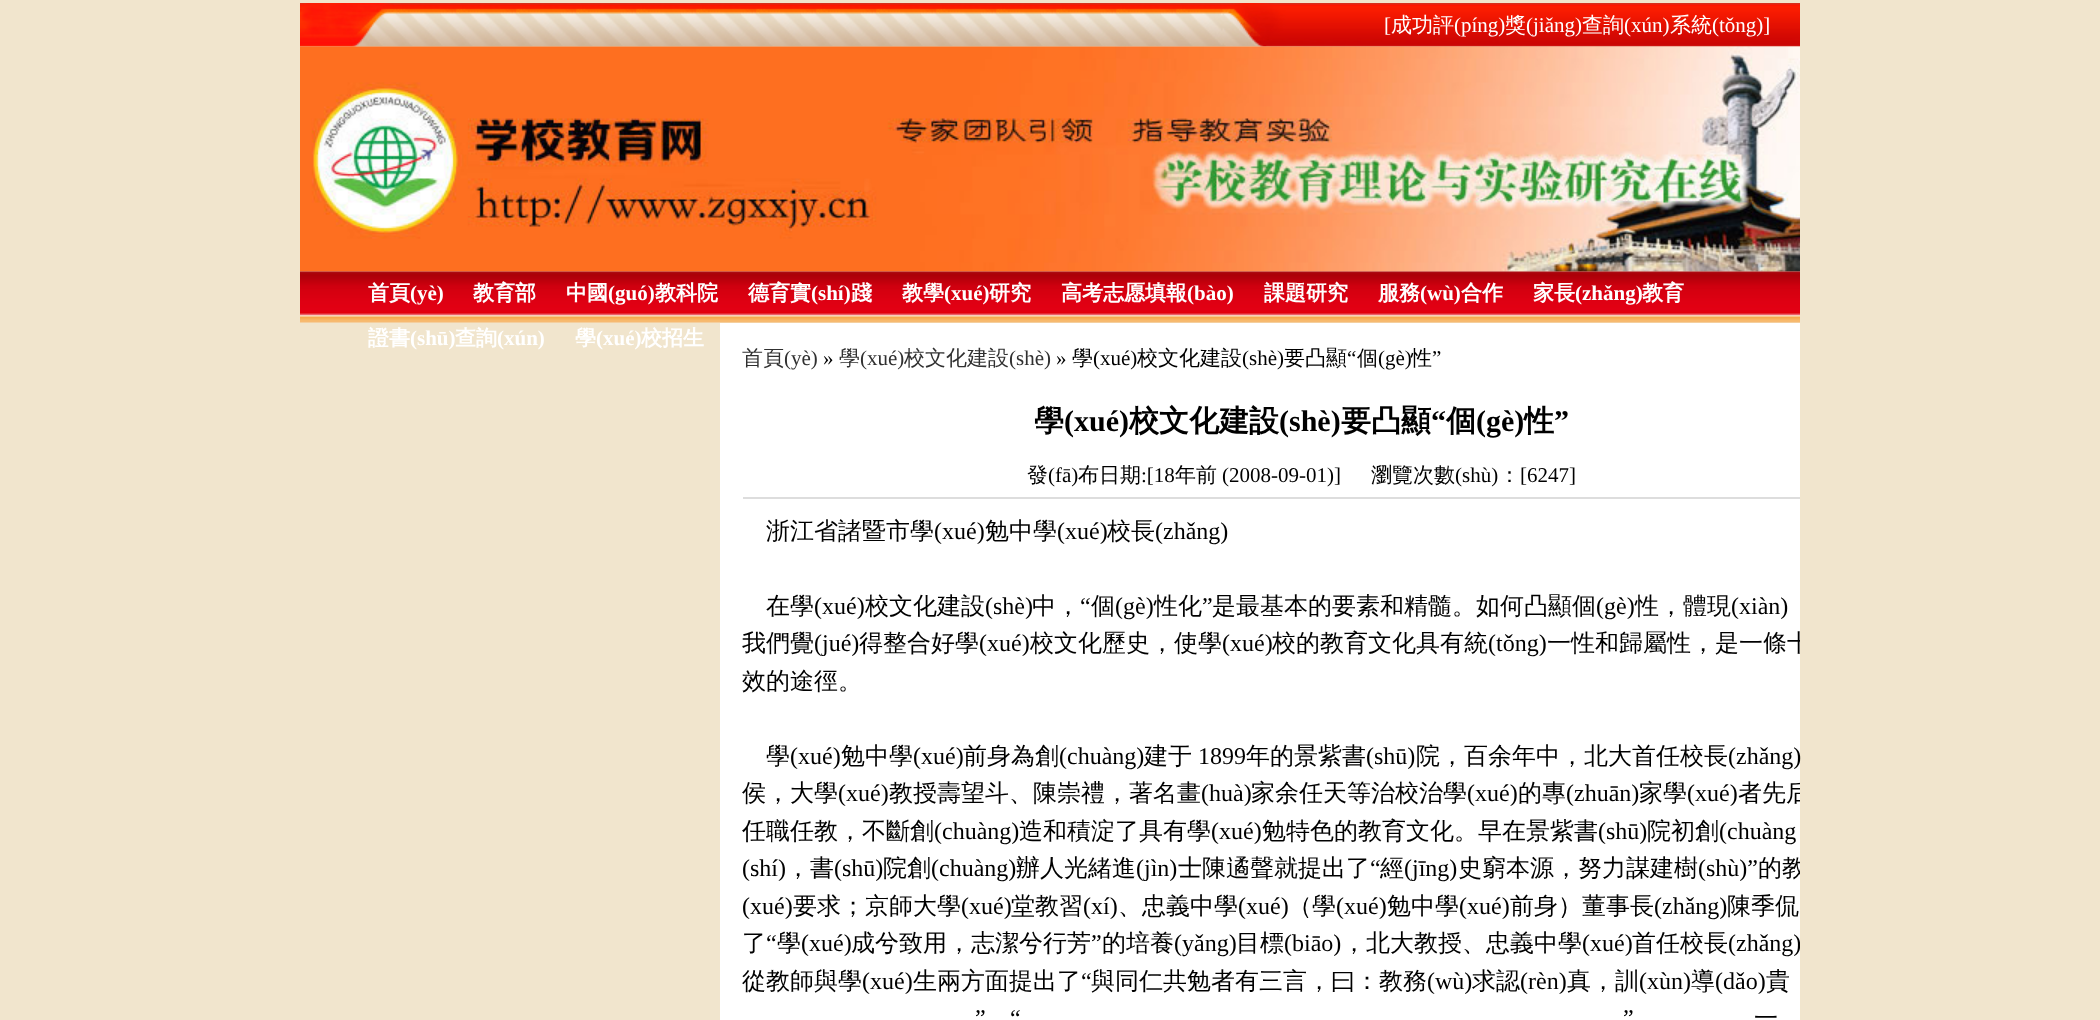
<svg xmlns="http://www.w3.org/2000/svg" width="2100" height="1020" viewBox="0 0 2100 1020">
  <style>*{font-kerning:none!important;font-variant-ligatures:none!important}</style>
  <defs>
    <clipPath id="clip1"><rect x="720" y="323" width="1080" height="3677"/></clipPath>
  </defs>
  <rect width="100%" height="100%" fill="rgb(241,229,205)"/>
  <image x="300" y="3" width="1500" height="44" href="pic1.png"/>
  <text x="1384" y="32" font-family="Liberation Serif" font-size="21" fill="rgb(255,255,255)">[</text>
  <text x="1391" y="32" font-family="WenQuanYi Zen Hei" font-size="21" font-weight="500" fill="rgb(255,255,255)">成功評</text>
  <text x="1454" y="32" font-family="Liberation Serif" font-size="21" fill="rgb(255,255,255)">(píng)</text>
  <text x="1505" y="32" font-family="WenQuanYi Zen Hei" font-size="21" font-weight="500" fill="rgb(255,255,255)">獎</text>
  <text x="1526" y="32" font-family="Liberation Serif" font-size="21" fill="rgb(255,255,255)">(jiǎng)</text>
  <text x="1582" y="32" font-family="WenQuanYi Zen Hei" font-size="21" font-weight="500" fill="rgb(255,255,255)">查詢</text>
  <text x="1624" y="32" font-family="Liberation Serif" font-size="21" fill="rgb(255,255,255)">(xún)</text>
  <text x="1670" y="32" font-family="WenQuanYi Zen Hei" font-size="21" font-weight="500" fill="rgb(255,255,255)">系統</text>
  <text x="1712" y="32" font-family="Liberation Serif" font-size="21" fill="rgb(255,255,255)">(tǒng)]</text>
  <image x="300" y="46" width="1500" height="226" href="pic2.png"/>
  <image x="300" y="271" width="1500" height="52" href="pic3.png"/>
  <text x="368" y="300" font-family="WenQuanYi Zen Hei" font-size="21" font-weight="bold" fill="rgb(255,255,255)">首頁</text>
  <text x="410" y="300" font-family="Liberation Serif" font-size="21" font-weight="bold" fill="rgb(255,255,255)">(yè)</text>
  <g font-family="WenQuanYi Zen Hei" font-size="21" font-weight="bold" fill="rgb(255,255,255)">
    <text x="473" y="300">教育部</text>
    <text x="566" y="300">中國</text>
  </g>
  <text x="608" y="300" font-family="Liberation Serif" font-size="21" font-weight="bold" fill="rgb(255,255,255)">(guó)</text>
  <g font-family="WenQuanYi Zen Hei" font-size="21" font-weight="bold" fill="rgb(255,255,255)">
    <text x="655" y="300">教科院</text>
    <text x="748" y="300">德育實</text>
  </g>
  <text x="811" y="300" font-family="Liberation Serif" font-size="21" font-weight="bold" fill="rgb(255,255,255)">(shí)</text>
  <g font-family="WenQuanYi Zen Hei" font-size="21" font-weight="bold" fill="rgb(255,255,255)">
    <text x="851" y="300">踐</text>
    <text x="902" y="300">教學</text>
  </g>
  <text x="944" y="300" font-family="Liberation Serif" font-size="21" font-weight="bold" fill="rgb(255,255,255)">(xué)</text>
  <g font-family="WenQuanYi Zen Hei" font-size="21" font-weight="bold" fill="rgb(255,255,255)">
    <text x="989" y="300">研究</text>
    <text x="1061" y="300">高考志愿填報</text>
  </g>
  <text x="1187" y="300" font-family="Liberation Serif" font-size="21" font-weight="bold" fill="rgb(255,255,255)">(bào)</text>
  <g font-family="WenQuanYi Zen Hei" font-size="21" font-weight="bold" fill="rgb(255,255,255)">
    <text x="1264" y="300">課題研究</text>
    <text x="1378" y="300">服務</text>
  </g>
  <text x="1420" y="300" font-family="Liberation Serif" font-size="21" font-weight="bold" fill="rgb(255,255,255)">(wù)</text>
  <g font-family="WenQuanYi Zen Hei" font-size="21" font-weight="bold" fill="rgb(255,255,255)">
    <text x="1461" y="300">合作</text>
    <text x="1533" y="300">家長</text>
  </g>
  <text x="1575" y="300" font-family="Liberation Serif" font-size="21" font-weight="bold" fill="rgb(255,255,255)">(zhǎng)</text>
  <g font-family="WenQuanYi Zen Hei" font-size="21" font-weight="bold" fill="rgb(255,255,255)">
    <text x="1642" y="300">教育</text>
    <text x="368" y="345">證書</text>
  </g>
  <text x="410" y="345" font-family="Liberation Serif" font-size="21" font-weight="bold" fill="rgb(255,255,255)">(shū)</text>
  <text x="455" y="345" font-family="WenQuanYi Zen Hei" font-size="21" font-weight="bold" fill="rgb(255,255,255)">查詢</text>
  <text x="497" y="345" font-family="Liberation Serif" font-size="21" font-weight="bold" fill="rgb(255,255,255)">(xún)</text>
  <text x="575" y="345" font-family="WenQuanYi Zen Hei" font-size="21" font-weight="bold" fill="rgb(255,255,255)">學</text>
  <text x="596" y="345" font-family="Liberation Serif" font-size="21" font-weight="bold" fill="rgb(255,255,255)">(xué)</text>
  <text x="641" y="345" font-family="WenQuanYi Zen Hei" font-size="21" font-weight="bold" fill="rgb(255,255,255)">校招生</text>
  <rect x="720" y="323" width="1080" height="697" fill="rgb(255,255,255)"/>
  <text x="742" y="365" font-family="WenQuanYi Zen Hei" font-size="21" font-weight="500" fill="rgb(48,48,48)">首頁</text>
  <text x="784" y="365" font-family="Liberation Serif" font-size="21" fill="rgb(48,48,48)">(yè)</text>
  <text x="839" y="365" font-family="WenQuanYi Zen Hei" font-size="21" font-weight="500" fill="rgb(48,48,48)">學</text>
  <text x="860" y="365" font-family="Liberation Serif" font-size="21" fill="rgb(48,48,48)">(xué)</text>
  <text x="904" y="365" font-family="WenQuanYi Zen Hei" font-size="21" font-weight="500" fill="rgb(48,48,48)">校文化建設</text>
  <text x="1009" y="365" font-family="Liberation Serif" font-size="21" fill="rgb(48,48,48)">(shè)</text>
  <text x="1072" y="365" font-family="WenQuanYi Zen Hei" font-size="21" font-weight="500" fill="rgb(0,0,0)">學</text>
  <text x="1093" y="365" font-family="Liberation Serif" font-size="21" fill="rgb(0,0,0)">(xué)</text>
  <text x="1137" y="365" font-family="WenQuanYi Zen Hei" font-size="21" font-weight="500" fill="rgb(0,0,0)">校文化建設</text>
  <text x="1242" y="365" font-family="Liberation Serif" font-size="21" fill="rgb(0,0,0)">(shè)</text>
  <text x="1284" y="365" font-family="WenQuanYi Zen Hei" font-size="21" font-weight="500" fill="rgb(0,0,0)">要凸顯</text>
  <text x="1347" y="365" font-family="Liberation Serif" font-size="21" fill="rgb(0,0,0)">“</text>
  <text x="1357" y="365" font-family="WenQuanYi Zen Hei" font-size="21" font-weight="500" fill="rgb(0,0,0)">個</text>
  <text x="1378" y="365" font-family="Liberation Serif" font-size="21" fill="rgb(0,0,0)">(gè)</text>
  <text x="1411" y="365" font-family="WenQuanYi Zen Hei" font-size="21" font-weight="500" fill="rgb(0,0,0)">性</text>
  <g font-family="Liberation Serif" font-size="21" fill="rgb(0,0,0)">
    <text x="1432" y="365">”</text>
    <text x="823" y="365">»</text>
    <text x="1056" y="365">»</text>
  </g>
  <text x="1034" y="431" font-family="WenQuanYi Zen Hei" font-size="30" font-weight="bold" fill="rgb(0,0,0)">學</text>
  <text x="1064" y="431" font-family="Liberation Serif" font-size="30" font-weight="bold" fill="rgb(0,0,0)">(xué)</text>
  <text x="1129" y="431" font-family="WenQuanYi Zen Hei" font-size="30" font-weight="bold" fill="rgb(0,0,0)">校文化建設</text>
  <text x="1279" y="431" font-family="Liberation Serif" font-size="30" font-weight="bold" fill="rgb(0,0,0)">(shè)</text>
  <text x="1341" y="431" font-family="WenQuanYi Zen Hei" font-size="30" font-weight="bold" fill="rgb(0,0,0)">要凸顯</text>
  <text x="1431" y="431" font-family="Liberation Serif" font-size="30" font-weight="bold" fill="rgb(0,0,0)">“</text>
  <text x="1446" y="431" font-family="WenQuanYi Zen Hei" font-size="30" font-weight="bold" fill="rgb(0,0,0)">個</text>
  <text x="1476" y="431" font-family="Liberation Serif" font-size="30" font-weight="bold" fill="rgb(0,0,0)">(gè)</text>
  <text x="1524" y="431" font-family="WenQuanYi Zen Hei" font-size="30" font-weight="bold" fill="rgb(0,0,0)">性</text>
  <text x="1554" y="431" font-family="Liberation Serif" font-size="30" font-weight="bold" fill="rgb(0,0,0)">”</text>
  <rect x="743" y="497" width="1057" height="2" fill="rgb(221,221,221)"/>
  <text x="1027" y="482" font-family="WenQuanYi Zen Hei" font-size="21" font-weight="500" fill="rgb(0,0,0)">發</text>
  <text x="1048" y="482" font-family="Liberation Serif" font-size="21" fill="rgb(0,0,0)">(fā)</text>
  <text x="1078" y="482" font-family="WenQuanYi Zen Hei" font-size="21" font-weight="500" fill="rgb(0,0,0)">布日期</text>
  <text x="1141" y="482" font-family="Liberation Serif" font-size="21" fill="rgb(0,0,0)">:[18</text>
  <text x="1175" y="482" font-family="WenQuanYi Zen Hei" font-size="21" font-weight="500" fill="rgb(0,0,0)">年前</text>
  <text x="1222" y="482" font-family="Liberation Serif" font-size="21" fill="rgb(0,0,0)">(2008-09-01)]</text>
  <text x="1371" y="482" font-family="WenQuanYi Zen Hei" font-size="21" font-weight="500" fill="rgb(0,0,0)">瀏覽次數</text>
  <text x="1455" y="482" font-family="Liberation Serif" font-size="21" fill="rgb(0,0,0)">(shù)</text>
  <text x="1499" y="482" font-family="WenQuanYi Zen Hei" font-size="21" font-weight="500" fill="rgb(0,0,0)">：</text>
  <text x="1520" y="482" font-family="Liberation Serif" font-size="21" fill="rgb(0,0,0)">[6247]</text>
  <text x="766" y="539" font-family="WenQuanYi Zen Hei" font-size="24" font-weight="500" fill="rgb(0,0,0)">浙江省諸暨市學</text>
  <text x="934" y="539" font-family="Liberation Serif" font-size="24" fill="rgb(0,0,0)">(xué)</text>
  <text x="985" y="539" font-family="WenQuanYi Zen Hei" font-size="24" font-weight="500" fill="rgb(0,0,0)">勉中學</text>
  <text x="1057" y="539" font-family="Liberation Serif" font-size="24" fill="rgb(0,0,0)">(xué)</text>
  <text x="1107" y="539" font-family="WenQuanYi Zen Hei" font-size="24" font-weight="500" fill="rgb(0,0,0)">校長</text>
  <text x="1155" y="539" font-family="Liberation Serif" font-size="24" fill="rgb(0,0,0)">(zhǎng)</text>
  <text x="766" y="614" font-family="WenQuanYi Zen Hei" font-size="24" font-weight="500" fill="rgb(0,0,0)">在學</text>
  <text x="814" y="614" font-family="Liberation Serif" font-size="24" fill="rgb(0,0,0)">(xué)</text>
  <text x="865" y="614" font-family="WenQuanYi Zen Hei" font-size="24" font-weight="500" fill="rgb(0,0,0)">校文化建設</text>
  <text x="985" y="614" font-family="Liberation Serif" font-size="24" fill="rgb(0,0,0)">(shè)</text>
  <text x="1032" y="614" font-family="WenQuanYi Zen Hei" font-size="24" font-weight="500" fill="rgb(0,0,0)">中，</text>
  <text x="1080" y="614" font-family="Liberation Serif" font-size="24" fill="rgb(0,0,0)">“</text>
  <text x="1091" y="614" font-family="WenQuanYi Zen Hei" font-size="24" font-weight="500" fill="rgb(0,0,0)">個</text>
  <text x="1115" y="614" font-family="Liberation Serif" font-size="24" fill="rgb(0,0,0)">(gè)</text>
  <text x="1154" y="614" font-family="WenQuanYi Zen Hei" font-size="24" font-weight="500" fill="rgb(0,0,0)">性化</text>
  <text x="1202" y="614" font-family="Liberation Serif" font-size="24" fill="rgb(0,0,0)">”</text>
  <text x="1212" y="614" font-family="WenQuanYi Zen Hei" font-size="24" font-weight="500" fill="rgb(0,0,0)">是最基本的要素和精髓。如何凸顯個</text>
  <text x="1596" y="614" font-family="Liberation Serif" font-size="24" fill="rgb(0,0,0)">(gè)</text>
  <text x="1635" y="614" font-family="WenQuanYi Zen Hei" font-size="24" font-weight="500" fill="rgb(0,0,0)">性，體現</text>
  <text x="1731" y="614" font-family="Liberation Serif" font-size="24" fill="rgb(0,0,0)">(xiàn)</text>
  <text x="742" y="651" font-family="WenQuanYi Zen Hei" font-size="24" font-weight="500" fill="rgb(0,0,0)">我們覺</text>
  <text x="814" y="651" font-family="Liberation Serif" font-size="24" fill="rgb(0,0,0)">(jué)</text>
  <text x="859" y="651" font-family="WenQuanYi Zen Hei" font-size="24" font-weight="500" fill="rgb(0,0,0)">得整合好學</text>
  <text x="979" y="651" font-family="Liberation Serif" font-size="24" fill="rgb(0,0,0)">(xué)</text>
  <text x="1030" y="651" font-family="WenQuanYi Zen Hei" font-size="24" font-weight="500" fill="rgb(0,0,0)">校文化歷史，使學</text>
  <text x="1222" y="651" font-family="Liberation Serif" font-size="24" fill="rgb(0,0,0)">(xué)</text>
  <text x="1272" y="651" font-family="WenQuanYi Zen Hei" font-size="24" font-weight="500" fill="rgb(0,0,0)">校的教育文化具有統</text>
  <text x="1488" y="651" font-family="Liberation Serif" font-size="24" fill="rgb(0,0,0)">(tǒng)</text>
  <g clip-path="url(#clip1)">
    <text x="1547" y="651" font-family="WenQuanYi Zen Hei" font-size="24" font-weight="500" fill="rgb(0,0,0)">一性和歸屬性，是一條十</text>
  </g>
  <g font-family="WenQuanYi Zen Hei" font-size="24" font-weight="500" fill="rgb(0,0,0)">
    <text x="742" y="689">效的途徑。</text>
    <text x="766" y="764">學</text>
  </g>
  <text x="790" y="764" font-family="Liberation Serif" font-size="24" fill="rgb(0,0,0)">(xué)</text>
  <text x="841" y="764" font-family="WenQuanYi Zen Hei" font-size="24" font-weight="500" fill="rgb(0,0,0)">勉中學</text>
  <text x="913" y="764" font-family="Liberation Serif" font-size="24" fill="rgb(0,0,0)">(xué)</text>
  <text x="963" y="764" font-family="WenQuanYi Zen Hei" font-size="24" font-weight="500" fill="rgb(0,0,0)">前身為創</text>
  <text x="1059" y="764" font-family="Liberation Serif" font-size="24" fill="rgb(0,0,0)">(chuàng)</text>
  <text x="1144" y="764" font-family="WenQuanYi Zen Hei" font-size="24" font-weight="500" fill="rgb(0,0,0)">建于</text>
  <text x="1198" y="764" font-family="Liberation Serif" font-size="24" fill="rgb(0,0,0)">1899</text>
  <text x="1246" y="764" font-family="WenQuanYi Zen Hei" font-size="24" font-weight="500" fill="rgb(0,0,0)">年的景紫書</text>
  <text x="1366" y="764" font-family="Liberation Serif" font-size="24" fill="rgb(0,0,0)">(shū)</text>
  <text x="1416" y="764" font-family="WenQuanYi Zen Hei" font-size="24" font-weight="500" fill="rgb(0,0,0)">院，百余年中，北大首任校長</text>
  <text x="1728" y="764" font-family="Liberation Serif" font-size="24" fill="rgb(0,0,0)">(zhǎng)</text>
  <text x="742" y="801" font-family="WenQuanYi Zen Hei" font-size="24" font-weight="500" fill="rgb(0,0,0)">侯，大學</text>
  <text x="838" y="801" font-family="Liberation Serif" font-size="24" fill="rgb(0,0,0)">(xué)</text>
  <text x="889" y="801" font-family="WenQuanYi Zen Hei" font-size="24" font-weight="500" fill="rgb(0,0,0)">教授壽望斗、陳崇禮，著名畫</text>
  <text x="1201" y="801" font-family="Liberation Serif" font-size="24" fill="rgb(0,0,0)">(huà)</text>
  <text x="1251" y="801" font-family="WenQuanYi Zen Hei" font-size="24" font-weight="500" fill="rgb(0,0,0)">家余任天等治校治學</text>
  <text x="1467" y="801" font-family="Liberation Serif" font-size="24" fill="rgb(0,0,0)">(xué)</text>
  <text x="1518" y="801" font-family="WenQuanYi Zen Hei" font-size="24" font-weight="500" fill="rgb(0,0,0)">的專</text>
  <text x="1566" y="801" font-family="Liberation Serif" font-size="24" fill="rgb(0,0,0)">(zhuān)</text>
  <text x="1639" y="801" font-family="WenQuanYi Zen Hei" font-size="24" font-weight="500" fill="rgb(0,0,0)">家學</text>
  <text x="1687" y="801" font-family="Liberation Serif" font-size="24" fill="rgb(0,0,0)">(xué)</text>
  <g clip-path="url(#clip1)">
    <text x="1738" y="801" font-family="WenQuanYi Zen Hei" font-size="24" font-weight="500" fill="rgb(0,0,0)">者先后</text>
  </g>
  <text x="742" y="839" font-family="WenQuanYi Zen Hei" font-size="24" font-weight="500" fill="rgb(0,0,0)">任職任教，不斷創</text>
  <text x="934" y="839" font-family="Liberation Serif" font-size="24" fill="rgb(0,0,0)">(chuàng)</text>
  <text x="1019" y="839" font-family="WenQuanYi Zen Hei" font-size="24" font-weight="500" fill="rgb(0,0,0)">造和積淀了具有學</text>
  <text x="1211" y="839" font-family="Liberation Serif" font-size="24" fill="rgb(0,0,0)">(xué)</text>
  <text x="1262" y="839" font-family="WenQuanYi Zen Hei" font-size="24" font-weight="500" fill="rgb(0,0,0)">勉特色的教育文化。早在景紫書</text>
  <text x="1598" y="839" font-family="Liberation Serif" font-size="24" fill="rgb(0,0,0)">(shū)</text>
  <text x="1647" y="839" font-family="WenQuanYi Zen Hei" font-size="24" font-weight="500" fill="rgb(0,0,0)">院初創</text>
  <g font-family="Liberation Serif" font-size="24" fill="rgb(0,0,0)">
    <text x="1719" y="839">(chuàng</text>
    <text x="742" y="876">(shí)</text>
  </g>
  <text x="786" y="876" font-family="WenQuanYi Zen Hei" font-size="24" font-weight="500" fill="rgb(0,0,0)">，書</text>
  <text x="834" y="876" font-family="Liberation Serif" font-size="24" fill="rgb(0,0,0)">(shū)</text>
  <text x="883" y="876" font-family="WenQuanYi Zen Hei" font-size="24" font-weight="500" fill="rgb(0,0,0)">院創</text>
  <text x="931" y="876" font-family="Liberation Serif" font-size="24" fill="rgb(0,0,0)">(chuàng)</text>
  <text x="1016" y="876" font-family="WenQuanYi Zen Hei" font-size="24" font-weight="500" fill="rgb(0,0,0)">辦人光緒進</text>
  <text x="1136" y="876" font-family="Liberation Serif" font-size="24" fill="rgb(0,0,0)">(jìn)</text>
  <text x="1178" y="876" font-family="WenQuanYi Zen Hei" font-size="24" font-weight="500" fill="rgb(0,0,0)">士陳遹聲就提出了</text>
  <text x="1370" y="876" font-family="Liberation Serif" font-size="24" fill="rgb(0,0,0)">“</text>
  <text x="1380" y="876" font-family="WenQuanYi Zen Hei" font-size="24" font-weight="500" fill="rgb(0,0,0)">經</text>
  <text x="1404" y="876" font-family="Liberation Serif" font-size="24" fill="rgb(0,0,0)">(jīng)</text>
  <text x="1458" y="876" font-family="WenQuanYi Zen Hei" font-size="24" font-weight="500" fill="rgb(0,0,0)">史窮本源，努力謀建樹</text>
  <text x="1698" y="876" font-family="Liberation Serif" font-size="24" fill="rgb(0,0,0)">(shù)”</text>
  <g clip-path="url(#clip1)">
    <text x="1758" y="876" font-family="WenQuanYi Zen Hei" font-size="24" font-weight="500" fill="rgb(0,0,0)">的教</text>
  </g>
  <text x="742" y="914" font-family="Liberation Serif" font-size="24" fill="rgb(0,0,0)">(xué)</text>
  <text x="793" y="914" font-family="WenQuanYi Zen Hei" font-size="24" font-weight="500" fill="rgb(0,0,0)">要求；京師大學</text>
  <text x="961" y="914" font-family="Liberation Serif" font-size="24" fill="rgb(0,0,0)">(xué)</text>
  <text x="1011" y="914" font-family="WenQuanYi Zen Hei" font-size="24" font-weight="500" fill="rgb(0,0,0)">堂教習</text>
  <text x="1083" y="914" font-family="Liberation Serif" font-size="24" fill="rgb(0,0,0)">(xí)</text>
  <text x="1118" y="914" font-family="WenQuanYi Zen Hei" font-size="24" font-weight="500" fill="rgb(0,0,0)">、忠義中學</text>
  <text x="1238" y="914" font-family="Liberation Serif" font-size="24" fill="rgb(0,0,0)">(xué)</text>
  <text x="1288" y="914" font-family="WenQuanYi Zen Hei" font-size="24" font-weight="500" fill="rgb(0,0,0)">（學</text>
  <text x="1336" y="914" font-family="Liberation Serif" font-size="24" fill="rgb(0,0,0)">(xué)</text>
  <text x="1387" y="914" font-family="WenQuanYi Zen Hei" font-size="24" font-weight="500" fill="rgb(0,0,0)">勉中學</text>
  <text x="1459" y="914" font-family="Liberation Serif" font-size="24" fill="rgb(0,0,0)">(xué)</text>
  <text x="1510" y="914" font-family="WenQuanYi Zen Hei" font-size="24" font-weight="500" fill="rgb(0,0,0)">前身）董事長</text>
  <text x="1654" y="914" font-family="Liberation Serif" font-size="24" fill="rgb(0,0,0)">(zhǎng)</text>
  <g font-family="WenQuanYi Zen Hei" font-size="24" font-weight="500" fill="rgb(0,0,0)">
    <text x="1727" y="914">陳季侃</text>
    <text x="742" y="951">了</text>
  </g>
  <text x="766" y="951" font-family="Liberation Serif" font-size="24" fill="rgb(0,0,0)">“</text>
  <text x="777" y="951" font-family="WenQuanYi Zen Hei" font-size="24" font-weight="500" fill="rgb(0,0,0)">學</text>
  <text x="801" y="951" font-family="Liberation Serif" font-size="24" fill="rgb(0,0,0)">(xué)</text>
  <text x="851" y="951" font-family="WenQuanYi Zen Hei" font-size="24" font-weight="500" fill="rgb(0,0,0)">成兮致用，志潔兮行芳</text>
  <text x="1091" y="951" font-family="Liberation Serif" font-size="24" fill="rgb(0,0,0)">”</text>
  <text x="1102" y="951" font-family="WenQuanYi Zen Hei" font-size="24" font-weight="500" fill="rgb(0,0,0)">的培養</text>
  <text x="1174" y="951" font-family="Liberation Serif" font-size="24" fill="rgb(0,0,0)">(yǎng)</text>
  <text x="1236" y="951" font-family="WenQuanYi Zen Hei" font-size="24" font-weight="500" fill="rgb(0,0,0)">目標</text>
  <text x="1284" y="951" font-family="Liberation Serif" font-size="24" fill="rgb(0,0,0)">(biāo)</text>
  <text x="1342" y="951" font-family="WenQuanYi Zen Hei" font-size="24" font-weight="500" fill="rgb(0,0,0)">，北大教授、忠義中學</text>
  <text x="1582" y="951" font-family="Liberation Serif" font-size="24" fill="rgb(0,0,0)">(xué)</text>
  <text x="1632" y="951" font-family="WenQuanYi Zen Hei" font-size="24" font-weight="500" fill="rgb(0,0,0)">首任校長</text>
  <g clip-path="url(#clip1)">
    <text x="1728" y="951" font-family="Liberation Serif" font-size="24" fill="rgb(0,0,0)">(zhǎng)</text>
  </g>
  <text x="742" y="989" font-family="WenQuanYi Zen Hei" font-size="24" font-weight="500" fill="rgb(0,0,0)">從教師與學</text>
  <text x="862" y="989" font-family="Liberation Serif" font-size="24" fill="rgb(0,0,0)">(xué)</text>
  <text x="913" y="989" font-family="WenQuanYi Zen Hei" font-size="24" font-weight="500" fill="rgb(0,0,0)">生兩方面提出了</text>
  <text x="1081" y="989" font-family="Liberation Serif" font-size="24" fill="rgb(0,0,0)">“</text>
  <text x="1091" y="989" font-family="WenQuanYi Zen Hei" font-size="24" font-weight="500" fill="rgb(0,0,0)">與同仁共勉者有三言，曰：教務</text>
  <text x="1427" y="989" font-family="Liberation Serif" font-size="24" fill="rgb(0,0,0)">(wù)</text>
  <text x="1472" y="989" font-family="WenQuanYi Zen Hei" font-size="24" font-weight="500" fill="rgb(0,0,0)">求認</text>
  <text x="1520" y="989" font-family="Liberation Serif" font-size="24" fill="rgb(0,0,0)">(rèn)</text>
  <text x="1567" y="989" font-family="WenQuanYi Zen Hei" font-size="24" font-weight="500" fill="rgb(0,0,0)">真，訓</text>
  <text x="1639" y="989" font-family="Liberation Serif" font-size="24" fill="rgb(0,0,0)">(xùn)</text>
  <text x="1691" y="989" font-family="WenQuanYi Zen Hei" font-size="24" font-weight="500" fill="rgb(0,0,0)">導</text>
  <text x="1715" y="989" font-family="Liberation Serif" font-size="24" fill="rgb(0,0,0)">(dǎo)</text>
  <text x="1766" y="989" font-family="WenQuanYi Zen Hei" font-size="24" font-weight="500" fill="rgb(0,0,0)">貴</text>
  <g font-family="Liberation Serif" font-size="24" fill="rgb(0,0,0)">
    <text x="975" y="1026">”</text>
    <text x="1010" y="1026">“</text>
    <text x="1623" y="1026">”</text>
  </g>
  <text x="1754" y="1026" font-family="WenQuanYi Zen Hei" font-size="24" font-weight="500" fill="rgb(0,0,0)">一</text>
</svg>
